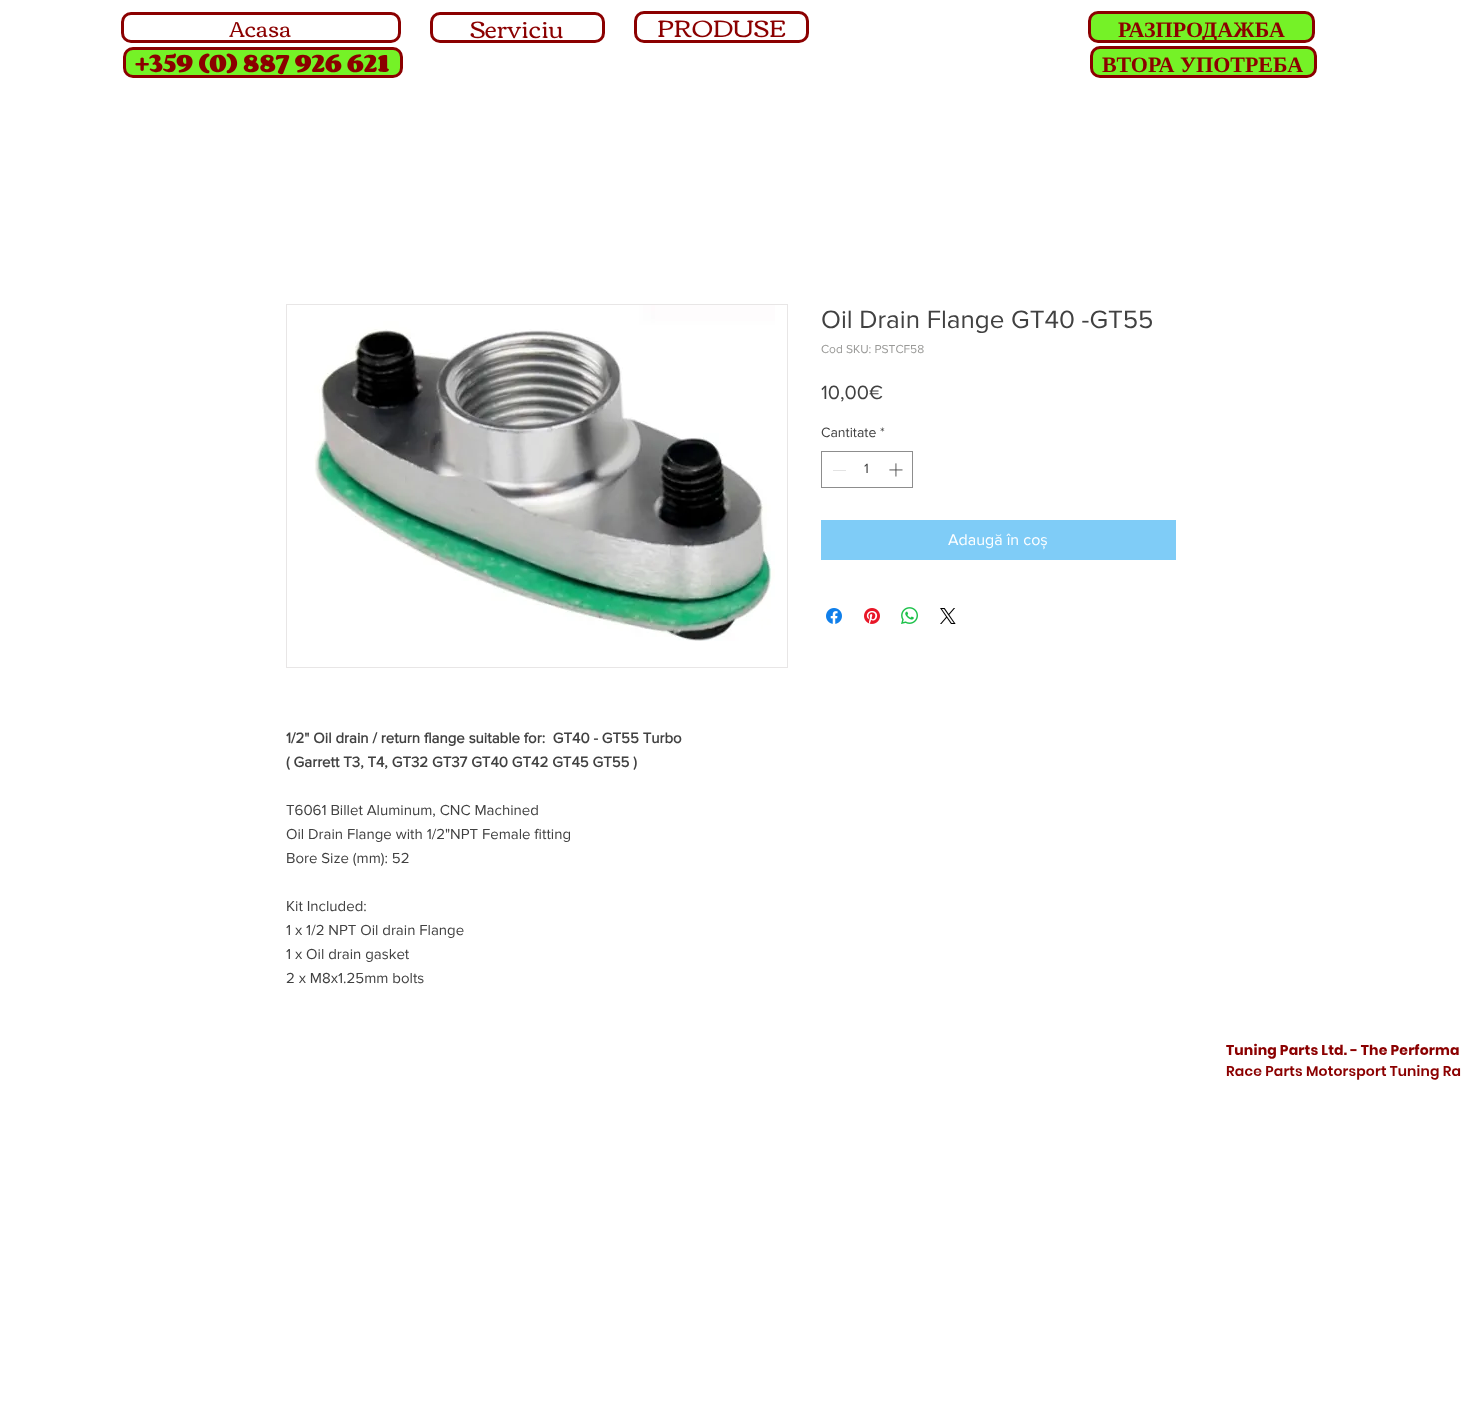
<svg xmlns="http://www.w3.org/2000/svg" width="1461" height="1423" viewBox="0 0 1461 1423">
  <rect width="100%" height="100%" fill="rgb(255,255,255)"/>
  <rect x="122.5" y="13.5" width="277" height="28" rx="8.5" fill="none" stroke="rgb(139,0,0)" stroke-width="3"/>
  <text x="229" y="37" font-family="Corben" font-size="22" fill="rgb(139,0,0)">Acasa</text>
  <rect x="431.5" y="13.5" width="172" height="28" rx="8.5" fill="none" stroke="rgb(139,0,0)" stroke-width="3"/>
  <text x="470" y="38" font-family="Corben" font-size="24" fill="rgb(139,0,0)">Serviciu</text>
  <rect x="635.5" y="12.5" width="172" height="29" rx="8.5" fill="none" stroke="rgb(139,0,0)" stroke-width="3"/>
  <text x="657" y="37" font-family="Corben" font-size="24" fill="rgb(139,0,0)">PRODUSE</text>
  <rect x="1089.5" y="12.5" width="224" height="29" rx="8.5" fill="rgb(117,242,39)" stroke="rgb(139,0,0)" stroke-width="3"/>
  <text x="1118" y="37" font-family="Liberation Serif" font-size="22" font-weight="bold" fill="rgb(139,0,0)">РАЗПРОДАЖБА</text>
  <rect x="124.5" y="48.5" width="277" height="28" rx="8.5" fill="rgb(117,242,39)" stroke="rgb(139,0,0)" stroke-width="3"/>
  <text x="135" y="72" font-family="Corben" font-size="22" font-weight="bold" fill="rgb(139,0,0)">+359 (0) 887 926 621</text>
  <rect x="1091.5" y="47.5" width="224" height="29" rx="8.5" fill="rgb(117,242,39)" stroke="rgb(139,0,0)" stroke-width="3"/>
  <text x="1102" y="72" font-family="Liberation Serif" font-size="22" font-weight="bold" fill="rgb(139,0,0)">ВТОРА УПОТРЕБА</text>
  <text x="821" y="328" font-family="'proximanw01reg'" font-size="26" fill="rgb(65,65,65)">Oil Drain Flange GT40 -GT55</text>
  <text x="821" y="353" font-family="'proximanw01reg'" font-size="12" fill="rgb(153,153,151)">Cod SKU: PSTCF58</text>
  <text x="821" y="399" font-family="'proximanw01reg'" font-size="20" fill="rgb(65,65,65)">10,00€</text>
  <g font-family="'proximanw01reg'" font-size="14" fill="rgb(65,65,65)">
    <text x="821" y="437">Cantitate</text>
    <text x="880" y="437">*</text>
  </g>
  <rect x="821.5" y="451.5" width="91" height="36" fill="none" stroke="rgb(141,141,141)"/>
  <rect x="833" y="470" width="13" height="1" fill="rgb(227,227,227)"/>
  <text x="864" y="473" font-family="'proximanw01reg'" font-size="14" fill="rgb(65,65,65)">1</text>
  <image x="889" y="463" width="14" height="14" href="pic1.png"/>
  <rect x="821" y="520" width="355" height="40" fill="rgb(127,204,247)"/>
  <text x="948" y="545" font-family="'proximanw01reg'" font-size="16" fill="rgb(255,255,255)">Adaugă în coș</text>
  <image x="826" y="608" width="16" height="16" href="pic2.png"/>
  <image x="864" y="608" width="16" height="16" href="pic3.png"/>
  <image x="901" y="607" width="17" height="17" href="pic4.png"/>
  <image x="940" y="608" width="16" height="16" href="pic5.png"/>
  <rect x="286.5" y="304.5" width="501" height="363" fill="none" stroke="rgb(232,230,230)"/>
  <image x="314" y="305" width="461" height="336" href="pic6.png"/>
  <g font-family="'proximanw01reg'" font-size="15" font-weight="bold" fill="rgb(65,65,65)">
    <text xml:space="preserve"><tspan x="286" y="743">1/2" Oil drain / return flange suitable for:  GT40 - GT55 Turbo</tspan><tspan x="286" y="767">( Garrett T3, T4, GT32 GT37 GT40 GT42 GT45 GT55 )</tspan></text>
  </g>
  <g font-family="'proximanw01reg'" font-size="15" fill="rgb(65,65,65)">
    <text>
      <tspan x="286" y="815">T6061 Billet Aluminum, CNC Machined</tspan>
      <tspan x="286" y="839">Oil Drain Flange with 1/2"NPT Female fitting</tspan>
      <tspan x="286" y="863">Bore Size (mm): 52</tspan>
    </text>
    <text>
      <tspan x="286" y="911">Kit Included:</tspan>
      <tspan x="286" y="935">1 x 1/2 NPT Oil drain Flange</tspan>
      <tspan x="286" y="959">1 x Oil drain gasket</tspan>
      <tspan x="286" y="983">2 x M8x1.25mm bolts</tspan>
    </text>
  </g>
  <text x="1226" y="1055" font-family="Poppins" font-size="14" font-weight="bold" letter-spacing="0.15" fill="rgb(139,0,0)">Tuning Parts Ltd. - The Performa</text>
  <text x="1226" y="1076" font-family="Poppins" font-size="14" font-weight="600" letter-spacing="0.15" fill="rgb(139,0,0)">Race Parts Motorsport Tuning Ra</text>
</svg>
